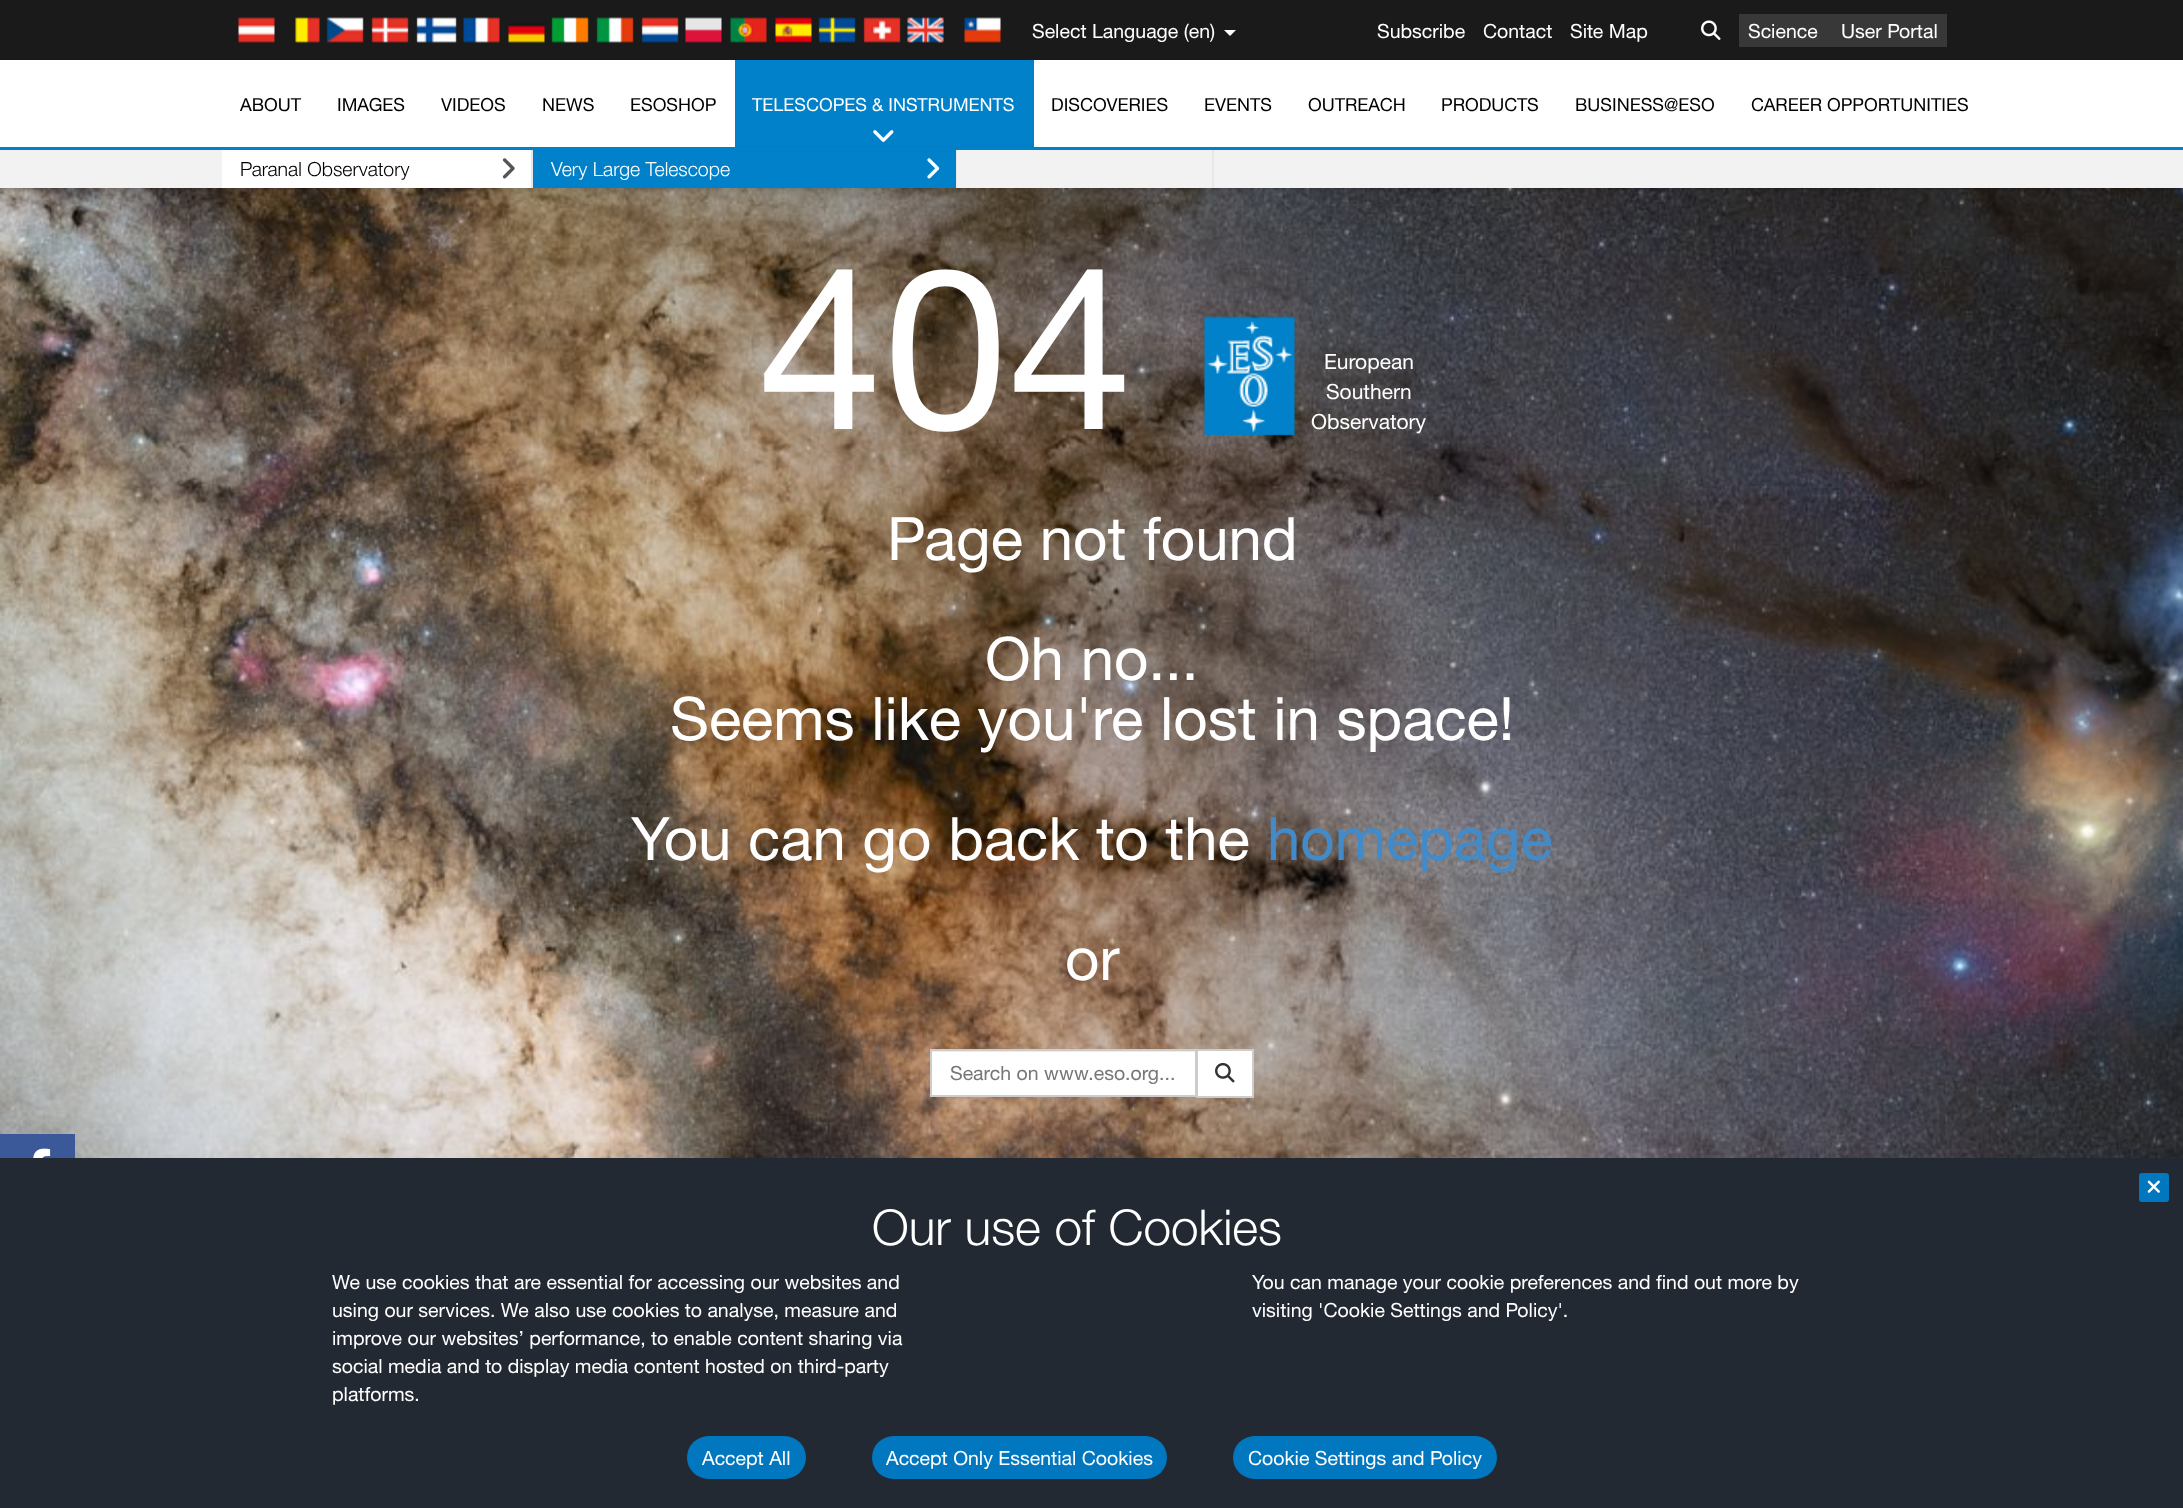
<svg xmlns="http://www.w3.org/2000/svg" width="2183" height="1508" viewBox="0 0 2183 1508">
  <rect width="100%" height="100%" fill="rgb(255,255,255)"/>
  <rect x="0" y="0" width="2183" height="60" fill="rgb(26,26,26)"/>
  <image x="238" y="17" width="37" height="26" href="pic1.png"/>
  <image x="295" y="17" width="25" height="26" href="pic2.png"/>
  <image x="326" y="17" width="38" height="26" href="pic3.png"/>
  <image x="371" y="17" width="38" height="26" href="pic4.png"/>
  <image x="416" y="17" width="41" height="26" href="pic5.png"/>
  <image x="463" y="17" width="37" height="26" href="pic6.png"/>
  <image x="508" y="23" width="37" height="20" href="pic7.png"/>
  <image x="551" y="17" width="38" height="26" href="pic8.png"/>
  <image x="596" y="17" width="38" height="26" href="pic9.png"/>
  <image x="641" y="17" width="38" height="26" href="pic10.png"/>
  <image x="685" y="17" width="37" height="26" href="pic11.png"/>
  <image x="730" y="17" width="37" height="26" href="pic12.png"/>
  <image x="775" y="17" width="37" height="26" href="pic13.png"/>
  <image x="818" y="17" width="38" height="26" href="pic14.png"/>
  <image x="863" y="17" width="38" height="26" href="pic15.png"/>
  <image x="907" y="17" width="37" height="26" href="pic16.png"/>
  <image x="964" y="17" width="37" height="26" href="pic17.png"/>
  <text x="1032" y="38" font-family="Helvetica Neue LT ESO" font-size="19.5" fill="rgb(255,255,255)">Select Language (en)</text>
  <path d="M1224 30H1236L1230 36Z" fill="rgb(255,255,255)"/>
  <g font-family="Helvetica Neue LT ESO" font-size="19.5" fill="rgb(255,255,255)">
    <text x="1377" y="38">Subscribe</text>
    <text x="1483" y="38">Contact</text>
    <text x="1570" y="38">Site Map</text>
  </g>
  <image x="1701" y="20" width="20" height="20" href="pic18.png"/>
  <rect x="1739" y="14" width="208" height="33" fill="rgb(56,56,56)"/>
  <g font-family="Helvetica Neue LT ESO" font-size="19.5" fill="rgb(255,255,255)">
    <text x="1748" y="38">Science</text>
    <text x="1841" y="38">User Portal</text>
  </g>
  <text x="240" y="111" font-family="Helvetica Neue LT ESO" font-size="18" fill="rgb(0,0,0)">ABOUT</text>
  <rect x="735" y="60" width="299" height="87" fill="rgb(0,129,201)"/>
  <text x="752" y="111" font-family="Helvetica Neue LT ESO" font-size="18" fill="rgb(255,255,255)">TELESCOPES &amp; INSTRUMENTS</text>
  <image x="873" y="130" width="21" height="12" href="pic19.png"/>
  <image x="0" y="188" width="2183" height="970" href="pic23.png"/>
  <rect x="0" y="152" width="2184" height="37" fill="rgba(0,0,0,0.2)" filter="blur(3px)"/>
  <rect x="0" y="147" width="2183" height="3" fill="rgb(0,129,201)"/>
  <rect x="0" y="150" width="2183" height="38" fill="rgb(242,242,242)"/>
  <rect x="531" y="150" width="2" height="38" fill="rgb(231,231,231)"/>
  <rect x="222" y="150" width="309" height="38" fill="rgb(255,255,255)"/>
  <text x="240" y="176" font-family="Helvetica Neue LT ESO" font-size="19.5" font-weight="300" fill="rgb(0,0,0)">Paranal Observatory</text>
  <image x="502" y="158" width="13" height="21" href="pic20.png"/>
  <rect x="956" y="150" width="1" height="38" fill="rgb(231,231,231)"/>
  <rect x="533" y="150" width="423" height="38" fill="rgb(0,129,201)"/>
  <text x="551" y="176" font-family="Helvetica Neue LT ESO" font-size="19.5" font-weight="300" fill="rgb(255,255,255)">Very Large Telescope</text>
  <image x="927" y="158" width="13" height="21" href="pic21.png"/>
  <rect x="1212" y="150" width="2" height="38" fill="rgb(231,231,231)"/>
  <g font-family="Helvetica Neue LT ESO" font-size="18" fill="rgb(0,0,0)">
    <text x="337" y="111">IMAGES</text>
    <text x="441" y="111">VIDEOS</text>
    <text x="542" y="111">NEWS</text>
    <text x="630" y="111">ESOSHOP</text>
    <text x="1051" y="111">DISCOVERIES</text>
    <text x="1204" y="111">EVENTS</text>
    <text x="1308" y="111">OUTREACH</text>
    <text x="1441" y="111">PRODUCTS</text>
    <text x="1575" y="111">BUSINESS@ESO</text>
    <text x="1751" y="111">CAREER OPPORTUNITIES</text>
  </g>
  <rect x="0" y="1134" width="75" height="24" fill="rgb(59,89,152)"/>
  <image x="33" y="1148" width="18" height="10" href="pic22.png"/>
  <text x="758" y="429" font-family="Helvetica Neue LT ESO" font-size="225" fill="rgb(255,255,255)">404</text>
  <image x="1204" y="316" width="91" height="120" href="pic24.png"/>
  <g font-family="Helvetica Neue LT ESO" font-size="21" fill="rgb(255,255,255)">
    <text x="1324" y="369">European</text>
    <text x="1326" y="399">Southern</text>
    <text x="1311" y="429">Observatory</text>
  </g>
  <g font-family="Helvetica Neue LT ESO" font-size="60" fill="rgb(255,255,255)">
    <text x="887" y="560">Page not found</text>
    <text x="985" y="680">Oh no...</text>
    <text x="670" y="740">Seems like you're lost in space!</text>
    <text x="631" y="860">You can go back to the</text>
  </g>
  <text x="1267" y="860" font-family="Helvetica Neue LT ESO" font-size="60" fill="rgb(66,139,202)">homepage</text>
  <text x="1065" y="980" font-family="Helvetica Neue LT ESO" font-size="60" fill="rgb(255,255,255)">or</text>
  <rect x="932" y="1052" width="263" height="43" fill="rgb(255,255,255)"/>
  <rect x="932" y="1051" width="264" height="1" fill="rgb(236,236,236)"/>
  <rect x="1197" y="1050" width="56" height="47" fill="rgb(255,255,255)" stroke="rgb(204,204,204)" stroke-width="2"/>
  <rect x="931" y="1050" width="265" height="46" fill="none" stroke="rgb(204,204,204)" stroke-width="2"/>
  <text x="950" y="1080" font-family="Helvetica Neue LT ESO" font-size="19.5" fill="rgb(119,119,119)">Search on www.eso.org...</text>
  <image x="1215" y="1062" width="20" height="21" href="pic25.png"/>
  <rect x="0" y="1158" width="2183" height="350" fill="rgb(35,41,50)"/>
  <rect x="2139" y="1173" width="30" height="29" rx="3" fill="rgb(0,119,190)"/>
  <image x="2147" y="1180" width="13" height="13" href="pic26.png"/>
  <text x="872" y="1245" font-family="Helvetica Neue LT ESO" font-size="49.5" font-weight="300" fill="rgb(255,255,255)">Our use of Cookies</text>
  <g font-family="Helvetica Neue LT ESO" font-size="19.5" fill="rgb(255,255,255)">
    <text>
      <tspan x="332" y="1289">We use cookies that are essential for accessing our websites and</tspan>
      <tspan x="332" y="1317">using our services. We also use cookies to analyse, measure and</tspan>
      <tspan x="332" y="1345">improve our websites’ performance, to enable content sharing via</tspan>
      <tspan x="332" y="1373">social media and to display media content hosted on third-party</tspan>
      <tspan x="332" y="1401">platforms.</tspan>
    </text>
    <text>
      <tspan x="1252" y="1289">You can manage your cookie preferences and find out more by</tspan>
      <tspan x="1252" y="1317">visiting 'Cookie Settings and Policy'.</tspan>
    </text>
  </g>
  <rect x="687" y="1436" width="119" height="43" rx="21.5" fill="rgb(0,119,190)"/>
  <text x="702" y="1465" font-family="Helvetica Neue LT ESO" font-size="19.5" fill="rgb(255,255,255)">Accept All</text>
  <rect x="872" y="1436" width="295" height="43" rx="21.5" fill="rgb(0,119,190)"/>
  <text x="886" y="1465" font-family="Helvetica Neue LT ESO" font-size="19.5" fill="rgb(255,255,255)">Accept Only Essential Cookies</text>
  <rect x="1233" y="1436" width="264" height="43" rx="21.5" fill="rgb(0,119,190)"/>
  <text x="1248" y="1465" font-family="Helvetica Neue LT ESO" font-size="19.5" fill="rgb(255,255,255)">Cookie Settings and Policy</text>
</svg>
